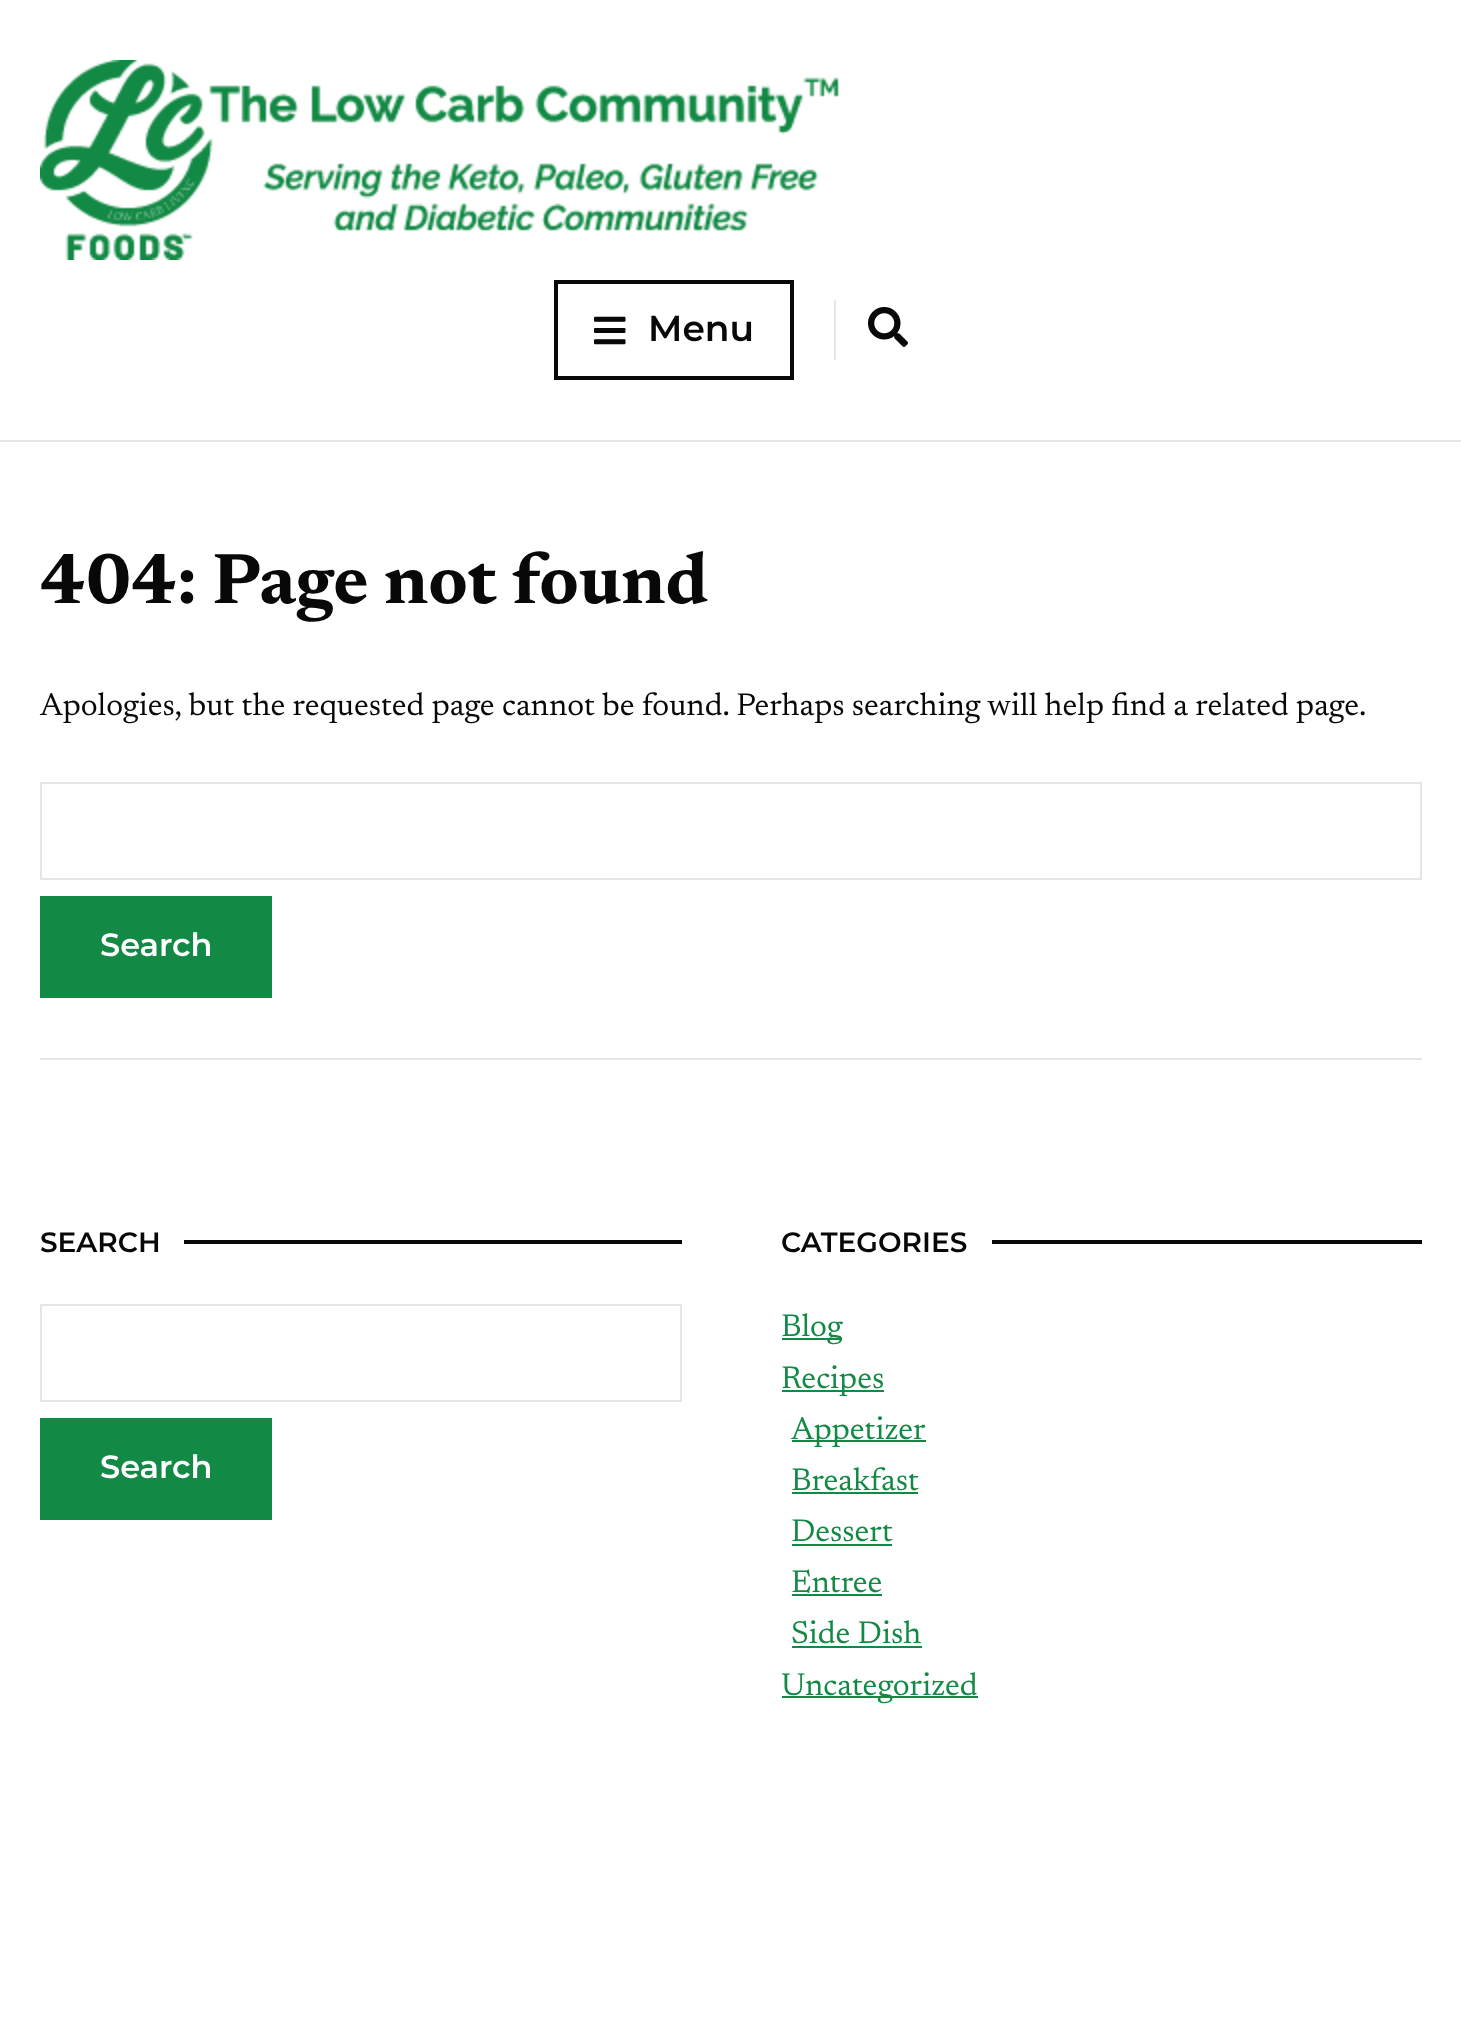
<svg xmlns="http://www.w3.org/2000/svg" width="1461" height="2019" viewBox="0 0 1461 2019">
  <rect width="100%" height="100%" fill="rgb(255,255,255)"/>
  <rect x="0" y="440" width="1461" height="2" fill="rgb(230,230,230)"/>
  <image x="40" y="60" width="799" height="200" href="pic1.png"/>
  <rect x="556" y="282" width="236" height="96" fill="none" stroke="rgb(8,8,8)" stroke-width="4"/>
  <image x="594" y="316" width="32" height="29" href="pic2.png"/>
  <text x="648" y="341" font-family="Montserrat" font-size="36" font-weight="600" fill="rgb(8,8,8)">Menu</text>
  <rect x="834" y="300" width="2" height="60" fill="rgb(230,230,230)"/>
  <image x="868" y="307" width="40" height="40" href="pic3.png"/>
  <rect x="40" y="1058" width="1382" height="2" fill="rgb(230,230,230)"/>
  <text x="40" y="603" font-family="Newsreader" font-size="72" font-weight="bold" fill="rgb(8,8,8)">404: Page not found</text>
  <text x="40" y="715" font-family="Newsreader" font-size="32" fill="rgb(8,8,8)">Apologies, but the requested page cannot be found. Perhaps searching will help find a related page.</text>
  <rect x="41" y="783" width="1380" height="96" fill="none" stroke="rgb(230,230,230)" stroke-width="2"/>
  <rect x="40" y="896" width="232" height="102" fill="rgb(18,137,68)"/>
  <text x="100" y="956" font-family="Montserrat" font-size="32" font-weight="600" fill="rgb(255,255,255)">Search</text>
  <text x="40" y="1252" font-family="Montserrat" font-size="28" font-weight="600" fill="rgb(8,8,8)">SEARCH</text>
  <rect x="184" y="1240" width="498" height="4" fill="rgb(8,8,8)"/>
  <rect x="41" y="1305" width="640" height="96" fill="none" stroke="rgb(230,230,230)" stroke-width="2"/>
  <rect x="40" y="1418" width="232" height="102" fill="rgb(18,137,68)"/>
  <text x="100" y="1478" font-family="Montserrat" font-size="32" font-weight="600" fill="rgb(255,255,255)">Search</text>
  <text x="781" y="1252" font-family="Montserrat" font-size="28" font-weight="600" fill="rgb(8,8,8)">CATEGORIES</text>
  <rect x="992" y="1240" width="430" height="4" fill="rgb(8,8,8)"/>
  <rect x="782" y="1338" width="60" height="2" fill="rgb(18,137,68)"/>
  <text x="781" y="1336" font-family="Newsreader" font-size="32" fill="rgb(18,137,68)">Blog</text>
  <rect x="782" y="1390" width="102" height="2" fill="rgb(18,137,68)"/>
  <text x="781" y="1388" font-family="Newsreader" font-size="32" fill="rgb(18,137,68)">Recipes</text>
  <rect x="792" y="1440" width="134" height="2" fill="rgb(18,137,68)"/>
  <g font-family="Newsreader" font-size="32" fill="rgb(18,137,68)">
    <text>
      <tspan x="791" y="1439">Appetizer</tspan>
      <tspan x="791" y="1490">Breakfast</tspan>
    </text>
  </g>
  <rect x="792" y="1492" width="126" height="2" fill="rgb(18,137,68)"/>
  <text x="791" y="1541" font-family="Newsreader" font-size="32" fill="rgb(18,137,68)">Dessert</text>
  <rect x="792" y="1544" width="100" height="2" fill="rgb(18,137,68)"/>
  <text x="791" y="1592" font-family="Newsreader" font-size="32" fill="rgb(18,137,68)">Entree</text>
  <rect x="792" y="1594" width="90" height="2" fill="rgb(18,137,68)"/>
  <text x="791" y="1643" font-family="Newsreader" font-size="32" fill="rgb(18,137,68)">Side Dish</text>
  <rect x="792" y="1646" width="130" height="2" fill="rgb(18,137,68)"/>
  <rect x="782" y="1696" width="196" height="2" fill="rgb(18,137,68)"/>
  <text x="781" y="1695" font-family="Newsreader" font-size="32" fill="rgb(18,137,68)">Uncategorized</text>
</svg>
